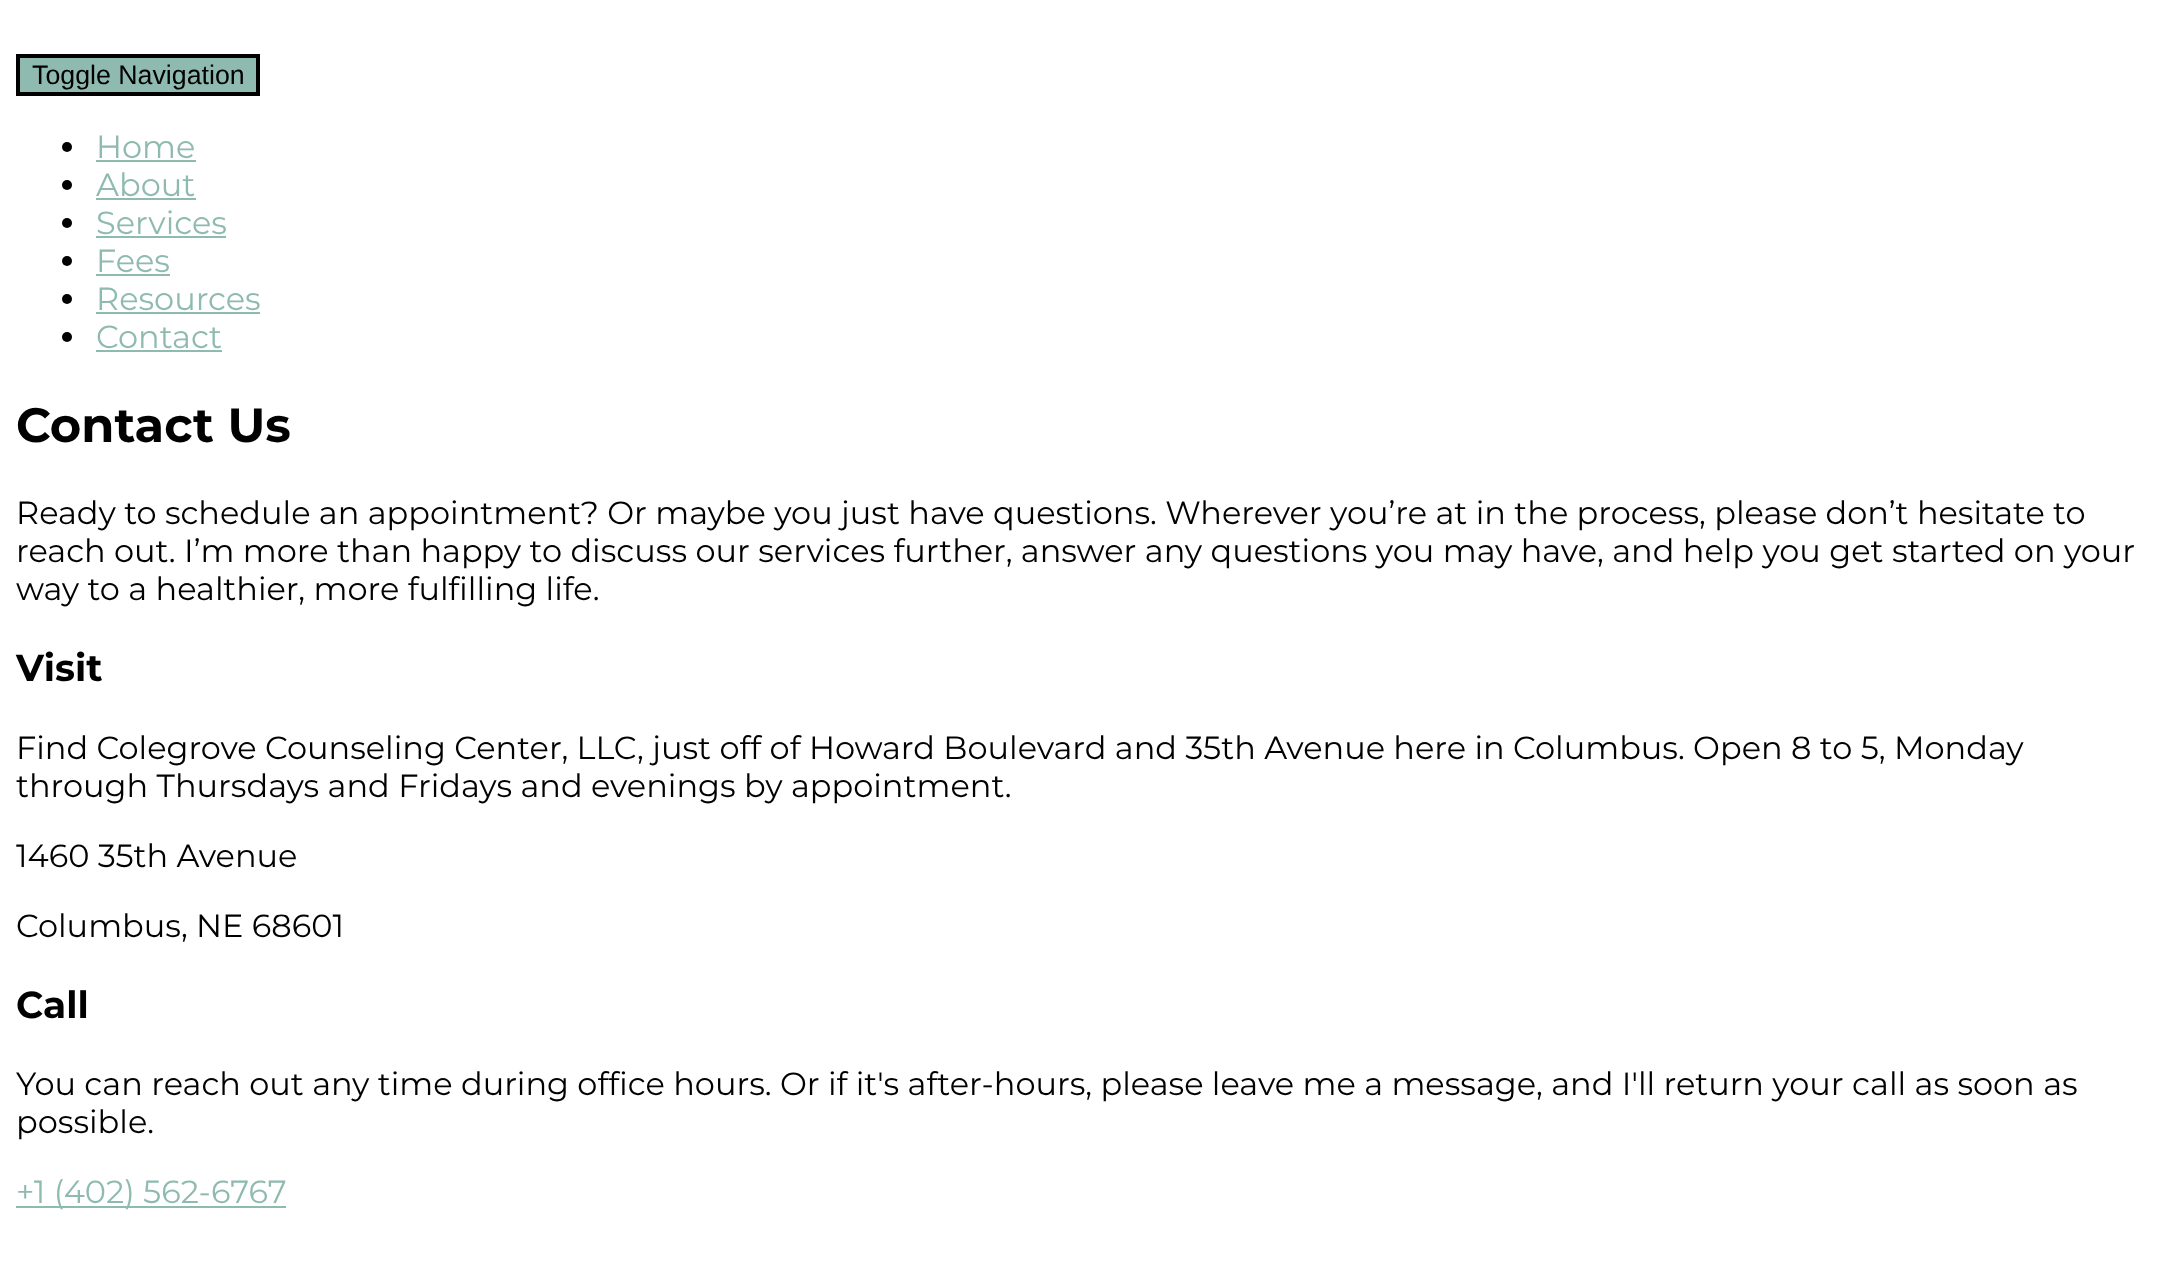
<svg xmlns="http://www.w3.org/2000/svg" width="2172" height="1270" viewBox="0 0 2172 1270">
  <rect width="100%" height="100%" fill="rgb(255,255,255)"/>
  <rect x="18" y="56" width="240" height="38" fill="rgb(143,186,176)" stroke="rgb(0,0,0)" stroke-width="4"/>
  <text x="32" y="84" font-family="Liberation Sans" font-size="26.75" fill="rgb(0,0,0)">Toggle Navigation</text>
  <circle cx="67" cy="147" r="5" fill="rgb(0,0,0)"/>
  <text x="96" y="158" font-family="Montserrat" font-size="32" fill="rgb(143,186,176)">Home</text>
  <rect x="96" y="160" width="100" height="2" fill="rgb(143,186,176)"/>
  <circle cx="67" cy="185" r="5" fill="rgb(0,0,0)"/>
  <text x="96" y="196" font-family="Montserrat" font-size="32" fill="rgb(143,186,176)">About</text>
  <rect x="96" y="198" width="100" height="2" fill="rgb(143,186,176)"/>
  <circle cx="67" cy="223" r="5" fill="rgb(0,0,0)"/>
  <text x="96" y="234" font-family="Montserrat" font-size="32" fill="rgb(143,186,176)">Services</text>
  <rect x="96" y="236" width="130" height="2" fill="rgb(143,186,176)"/>
  <circle cx="67" cy="261" r="5" fill="rgb(0,0,0)"/>
  <text x="96" y="272" font-family="Montserrat" font-size="32" fill="rgb(143,186,176)">Fees</text>
  <rect x="96" y="274" width="74" height="2" fill="rgb(143,186,176)"/>
  <circle cx="67" cy="299" r="5" fill="rgb(0,0,0)"/>
  <text x="96" y="310" font-family="Montserrat" font-size="32" fill="rgb(143,186,176)">Resources</text>
  <rect x="96" y="312" width="164" height="2" fill="rgb(143,186,176)"/>
  <circle cx="67" cy="337" r="5" fill="rgb(0,0,0)"/>
  <text x="96" y="348" font-family="Montserrat" font-size="32" fill="rgb(143,186,176)">Contact</text>
  <rect x="96" y="350" width="126" height="2" fill="rgb(143,186,176)"/>
  <text x="16" y="442" font-family="Montserrat" font-size="48" font-weight="bold" fill="rgb(0,0,0)">Contact Us</text>
  <g font-family="Montserrat" font-size="32" fill="rgb(0,0,0)">
    <text>
      <tspan x="16" y="524">Ready to schedule an appointment? Or maybe you just have questions. Wherever you’re at in the process, please don’t hesitate to</tspan>
      <tspan x="16" y="562">reach out. I’m more than happy to discuss our services further, answer any questions you may have, and help you get started on your</tspan>
      <tspan x="16" y="600">way to a healthier, more fulfilling life.</tspan>
    </text>
  </g>
  <text x="16" y="681" font-family="Montserrat" font-size="37.5" font-weight="bold" fill="rgb(0,0,0)">Visit</text>
  <g font-family="Montserrat" font-size="32" fill="rgb(0,0,0)">
    <text>
      <tspan x="16" y="759">Find Colegrove Counseling Center, LLC, just off of Howard Boulevard and 35th Avenue here in Columbus. Open 8 to 5, Monday</tspan>
      <tspan x="16" y="797">through Thursdays and Fridays and evenings by appointment.</tspan>
    </text>
    <text x="16" y="867">1460 35th Avenue</text>
    <text x="16" y="937">Columbus, NE 68601</text>
  </g>
  <text x="16" y="1018" font-family="Montserrat" font-size="37.5" font-weight="bold" fill="rgb(0,0,0)">Call</text>
  <g font-family="Montserrat" font-size="32" fill="rgb(0,0,0)">
    <text>
      <tspan x="16" y="1095">You can reach out any time during office hours. Or if it's after-hours, please leave me a message, and I'll return your call as soon as</tspan>
      <tspan x="16" y="1133">possible.</tspan>
    </text>
  </g>
  <rect x="16" y="1206" width="270" height="2" fill="rgb(143,186,176)"/>
  <text x="16" y="1203" font-family="Montserrat" font-size="32" fill="rgb(143,186,176)">+1 (402) 562-6767</text>
</svg>
